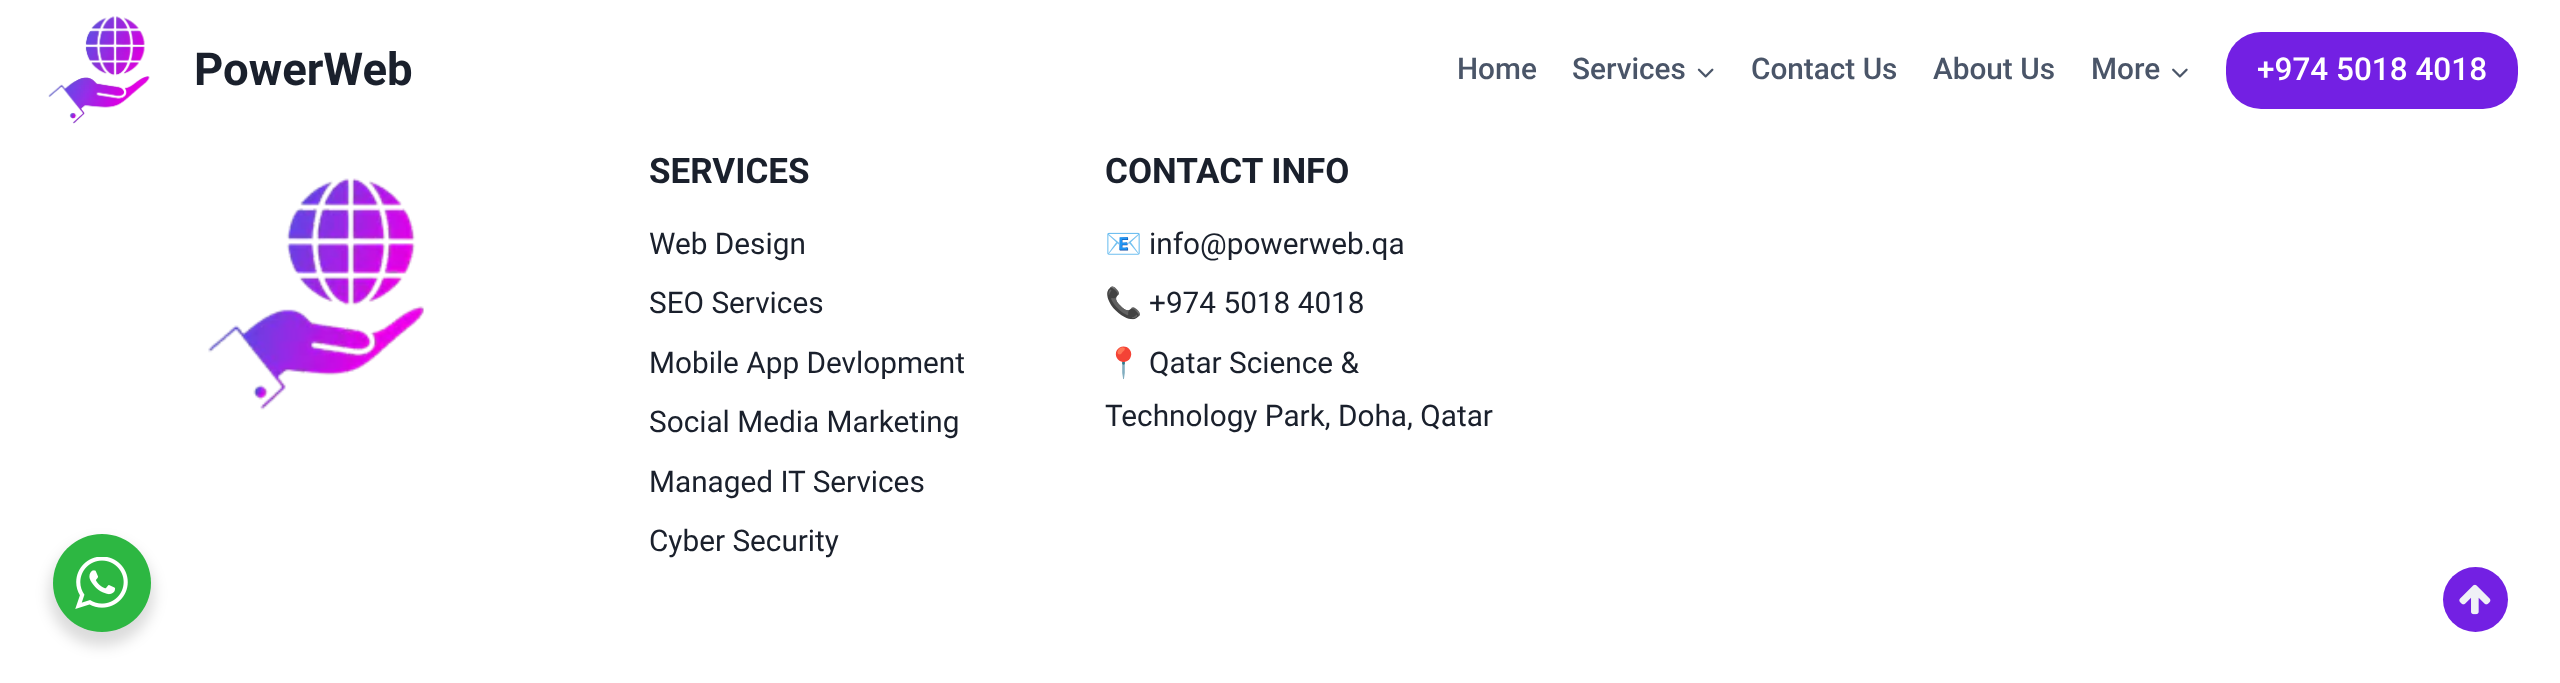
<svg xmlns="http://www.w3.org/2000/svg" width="2560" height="683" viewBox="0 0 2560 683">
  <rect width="100%" height="100%" fill="rgb(255,255,255)"/>
  <image x="48" y="16" width="102" height="108" href="pic1.png"/>
  <text x="194" y="85" font-family="Roboto" font-size="45.5" font-weight="bold" fill="rgb(26,32,44)">PowerWeb</text>
  <g font-family="Roboto" font-size="29.75" font-weight="500" fill="rgb(74,85,104)">
    <text x="1457" y="79">Home</text>
    <text x="1572" y="79">Services</text>
  </g>
  <image x="1697" y="68" width="17" height="10" href="pic2.png"/>
  <g font-family="Roboto" font-size="29.75" font-weight="500" fill="rgb(74,85,104)">
    <text x="1751" y="79">Contact Us</text>
    <text x="1933" y="79">About Us</text>
    <text x="2091" y="79">More</text>
  </g>
  <image x="2172" y="68" width="16" height="10" href="pic3.png"/>
  <rect x="2226" y="32" width="292" height="77" rx="35" fill="rgb(115,32,227)"/>
  <text x="2257" y="80" font-family="Roboto" font-size="31.5" font-weight="500" fill="rgb(255,255,255)">+974 5018 4018</text>
  <image x="208" y="178" width="216" height="232" href="pic4.png"/>
  <text x="649" y="183" font-family="Roboto" font-size="35" font-weight="bold" fill="rgb(26,32,44)">SERVICES</text>
  <g font-family="Roboto" font-size="29.75" fill="rgb(26,32,44)">
    <text>
      <tspan x="649" y="254">Web Design</tspan>
      <tspan x="649" y="313">SEO Services</tspan>
    </text>
    <text>
      <tspan x="649" y="373">Mobile App Devlopment</tspan>
      <tspan x="649" y="432">Social Media Marketing</tspan>
    </text>
    <text>
      <tspan x="649" y="492">Managed IT Services</tspan>
      <tspan x="649" y="551">Cyber Security</tspan>
    </text>
  </g>
  <text x="1105" y="183" font-family="Roboto" font-size="35" font-weight="bold" fill="rgb(26,32,44)">CONTACT INFO</text>
  <text x="1105" y="254" font-family="Noto Color Emoji" font-size="29.75" fill="rgb(26,32,44)">📧</text>
  <text x="1149" y="254" font-family="Roboto" font-size="29.75" fill="rgb(26,32,44)">info@powerweb.qa</text>
  <text x="1105" y="313" font-family="Noto Color Emoji" font-size="29.75" fill="rgb(26,32,44)">📞</text>
  <text x="1149" y="313" font-family="Roboto" font-size="29.75" fill="rgb(26,32,44)">+974 5018 4018</text>
  <text x="1105" y="373" font-family="Noto Color Emoji" font-size="29.75" fill="rgb(26,32,44)">📍</text>
  <g font-family="Roboto" font-size="29.75" fill="rgb(26,32,44)">
    <text x="1149" y="373">Qatar Science &amp;</text>
    <text x="1105" y="426">Technology Park, Doha, Qatar</text>
  </g>
  <rect x="49" y="541" width="105" height="105" rx="52.5" fill="rgba(0,0,0,0.14)" filter="blur(7px)"/>
  <circle cx="102" cy="583" r="49" fill="rgb(45,183,66)"/>
  <image x="75" y="557" width="53" height="52" href="pic5.png"/>
  <circle cx="2475.5" cy="599.5" r="32.5" fill="rgb(115,32,227)"/>
  <image x="2459" y="584" width="32" height="31" href="pic6.png"/>
</svg>
